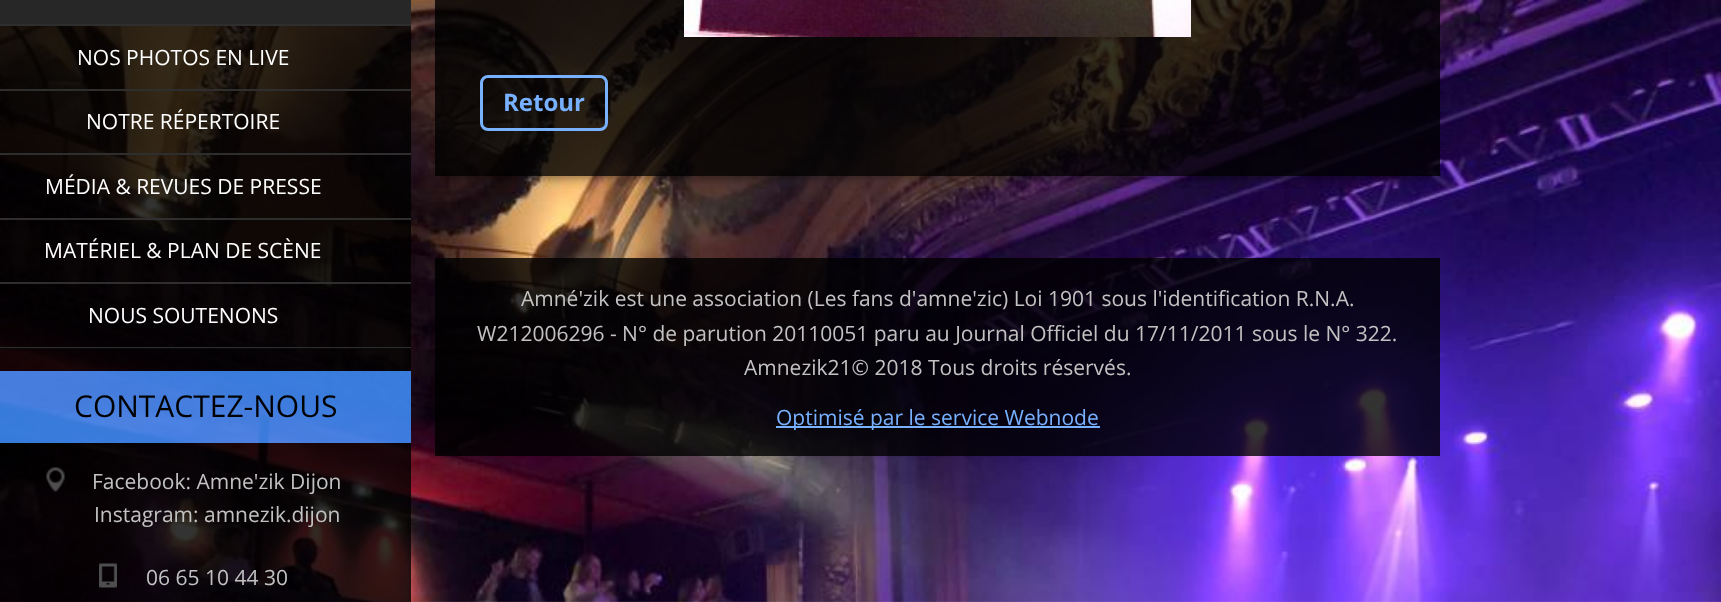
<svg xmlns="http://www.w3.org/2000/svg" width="1721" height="602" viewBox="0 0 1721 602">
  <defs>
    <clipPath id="clip1"><path d="M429 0H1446V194H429ZM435-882H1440V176H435Z" clip-rule="evenodd"/></clipPath>
  </defs>
  <rect width="100%" height="100%" fill="rgb(255,255,255)"/>
  <image x="0" y="0" width="1721" height="602" href="pic1.png"/>
  <rect x="0" y="26" width="411" height="321" fill="rgba(0,0,0,0.8)"/>
  <rect x="0" y="0" width="411" height="24" fill="rgb(39,39,39)"/>
  <rect x="0" y="24" width="411" height="2" fill="rgb(46,46,46)"/>
  <rect x="0" y="89" width="411" height="2" fill="rgb(46,46,46)"/>
  <text x="77" y="65" font-family="Open Sans" font-size="21" fill="rgb(255,255,255)">NOS PHOTOS EN LIVE</text>
  <rect x="0" y="153" width="411" height="2" fill="rgb(46,46,46)"/>
  <text x="86" y="129" font-family="Open Sans" font-size="21" fill="rgb(255,255,255)">NOTRE RÉPERTOIRE</text>
  <rect x="0" y="218" width="411" height="2" fill="rgb(46,46,46)"/>
  <text x="45" y="194" font-family="Open Sans" font-size="21" fill="rgb(255,255,255)">MÉDIA &amp; REVUES DE PRESSE</text>
  <rect x="0" y="282" width="411" height="2" fill="rgb(46,46,46)"/>
  <text x="44" y="258" font-family="Open Sans" font-size="21" fill="rgb(255,255,255)">MATÉRIEL &amp; PLAN DE SCÈNE</text>
  <rect x="0" y="347" width="411" height="2" fill="rgb(46,46,46)"/>
  <text x="88" y="323" font-family="Open Sans" font-size="21" fill="rgb(255,255,255)">NOUS SOUTENONS</text>
  <rect x="0" y="348" width="411" height="23" fill="rgba(0,0,0,0.8)"/>
  <rect x="0" y="371" width="411" height="72" fill="rgba(63,145,255,0.85)"/>
  <text x="74" y="417" font-family="Open Sans" font-size="30" fill="rgb(0,0,0)">CONTACTEZ-NOUS</text>
  <rect x="0" y="443" width="411" height="159" fill="rgba(0,0,0,0.8)"/>
  <image x="46" y="467" width="19" height="25" href="pic2.png"/>
  <g font-family="Open Sans" font-size="21" fill="rgb(194,194,194)">
    <text x="92" y="489">Facebook: Amne'zik Dijon</text>
    <text x="94" y="522">Instagram: amnezik.dijon</text>
  </g>
  <image x="99" y="563" width="18" height="25" href="pic3.png"/>
  <text x="146" y="585" font-family="Open Sans" font-size="21" fill="rgb(194,194,194)">06 65 10 44 30</text>
  <g clip-path="url(#clip1)">
    <rect x="444" y="-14" width="987" height="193" fill="rgba(0,0,0,0.35)" filter="blur(4.5px)"/>
  </g>
  <rect x="435" y="0" width="1005" height="75" fill="rgba(0,0,0,0.8)"/>
  <image x="684" y="0" width="507" height="37" href="pic4.png"/>
  <rect x="435" y="75" width="1005" height="101" fill="rgba(0,0,0,0.8)"/>
  <rect x="481.5" y="76.5" width="125" height="53" rx="6.5" fill="none" stroke="rgb(119,177,255)" stroke-width="3"/>
  <text x="503" y="111" font-family="Open Sans" font-size="24" font-weight="bold" fill="rgb(119,177,255)">Retour</text>
  <rect x="435" y="258" width="1005" height="198" fill="rgba(0,0,0,0.8)"/>
  <g font-family="Open Sans" font-size="21" fill="rgb(194,194,194)">
    <text x="521" y="306">Amné'zik est une association (Les fans d'amne'zic) Loi 1901 sous l'identification R.N.A.</text>
    <text x="477" y="341">W212006296 - N° de parution 20110051 paru au Journal Officiel du 17/11/2011 sous le N° 322.</text>
    <text x="744" y="375">Amnezik21© 2018 Tous droits réservés.</text>
  </g>
  <rect x="776" y="426" width="324" height="2" fill="rgb(119,177,255)"/>
  <text x="776" y="425" font-family="Open Sans" font-size="21" fill="rgb(119,177,255)">Optimisé par le service Webnode</text>
</svg>
